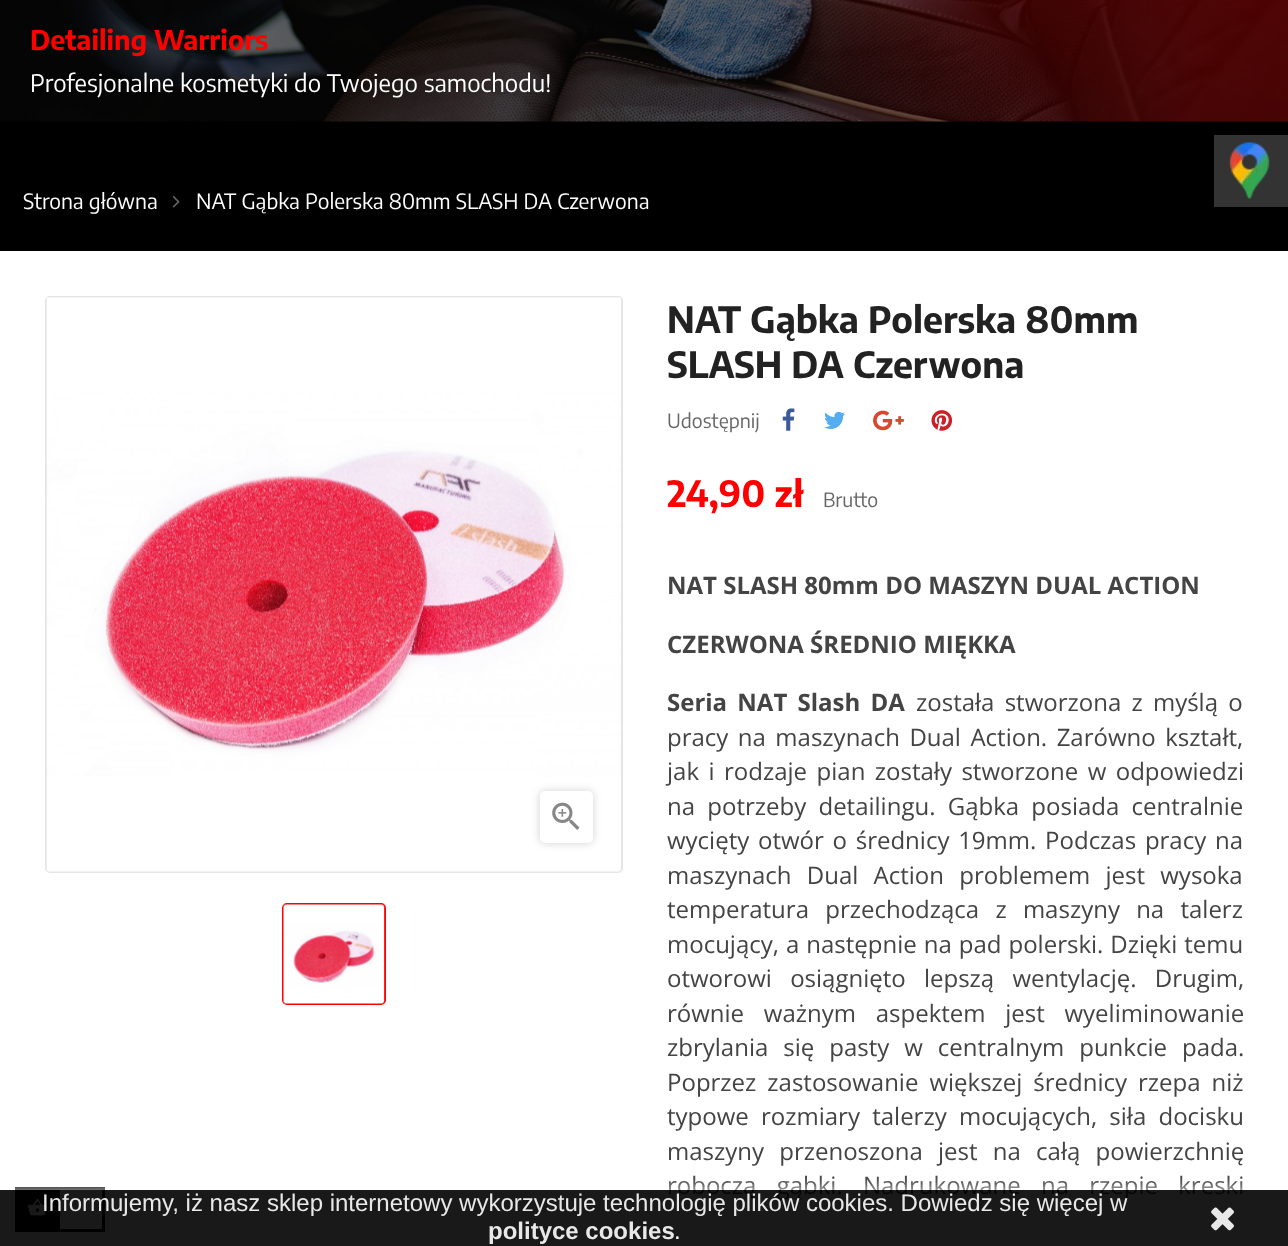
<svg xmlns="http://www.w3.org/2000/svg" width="1288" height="1246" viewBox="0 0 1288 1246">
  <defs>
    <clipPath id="clip1"><rect x="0" y="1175" width="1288" height="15"/></clipPath>
  </defs>
  <rect width="100%" height="100%" fill="rgb(0,0,0)"/>
  <image x="0" y="0" width="1288" height="122" href="pic1.png"/>
  <text x="30" y="50" font-family="Encode Sans Condensed" font-size="27" font-weight="bold" fill="rgb(255,0,0)">Detailing Warriors</text>
  <text x="30" y="92" font-family="Encode Sans Condensed" font-size="24" fill="rgb(255,255,255)">Profesjonalne kosmetyki do Twojego samochodu!</text>
  <text x="23" y="209" font-family="Encode Sans Condensed" font-size="21" fill="rgb(255,255,255)">Strona główna</text>
  <image x="172" y="196" width="8" height="12" href="pic2.png"/>
  <text x="196" y="209" font-family="Encode Sans Condensed" font-size="21" fill="rgb(255,255,255)">NAT Gąbka Polerska 80mm SLASH DA Czerwona</text>
  <rect x="0" y="251" width="1288" height="995" fill="rgb(255,255,255)"/>
  <rect x="46" y="297" width="576" height="575" rx="4" fill="none" stroke="rgb(229,229,229)" stroke-width="2"/>
  <image x="46" y="297" width="575" height="575" href="pic3.png"/>
  <rect x="540" y="791" width="53" height="52" rx="5" fill="rgba(0,0,0,0.18)" filter="blur(4px)"/>
  <rect x="540" y="791" width="53" height="52" rx="5" fill="rgb(255,255,255)"/>
  <image x="552" y="802" width="28" height="28" href="pic4.png"/>
  <rect x="283" y="904" width="102" height="100" rx="4" fill="none" stroke="rgb(255,0,0)" stroke-width="2"/>
  <image x="283" y="904" width="102" height="100" href="pic5.png"/>
  <g font-family="Encode Sans Condensed" font-size="36" font-weight="bold" fill="rgb(34,34,34)">
    <text>
      <tspan x="667" y="333">NAT Gąbka Polerska 80mm</tspan>
      <tspan x="667" y="378">SLASH DA Czerwona</tspan>
    </text>
  </g>
  <text x="667" y="428" font-family="Encode Sans Condensed" font-size="19.5" fill="rgb(102,102,102)">Udostępnij</text>
  <image x="782" y="408" width="13" height="23" href="pic6.png"/>
  <image x="824" y="411" width="21" height="18" href="pic7.png"/>
  <image x="873" y="410" width="31" height="21" href="pic8.png"/>
  <image x="931" y="410" width="22" height="21" href="pic9.png"/>
  <text x="667" y="507" font-family="Encode Sans Condensed" font-size="36" font-weight="bold" fill="rgb(255,0,0)">24,90 zł</text>
  <text x="823" y="507" font-family="Encode Sans Condensed" font-size="19.5" fill="rgb(102,102,102)">Brutto</text>
  <g font-family="Open Sans" font-size="24" font-weight="bold" fill="rgb(68,68,68)">
    <text x="667" y="594">NAT SLASH 80mm DO MASZYN DUAL ACTION</text>
    <text x="667" y="653">CZERWONA ŚREDNIO MIĘKKA</text>
    <text x="667" y="711" word-spacing="4">Seria NAT Slash DA</text>
  </g>
  <g font-family="Open Sans" font-size="24" fill="rgb(68,68,68)">
    <text x="916" y="711" word-spacing="4">została stworzona z myślą o</text>
    <text>
      <tspan x="667" y="746" word-spacing="3.25">pracy na maszynach Dual Action. Zarówno kształt,</tspan>
      <tspan x="667" y="780" word-spacing="3.25">jak i rodzaje pian zostały stworzone w odpowiedzi</tspan>
      <tspan x="667" y="815" word-spacing="6">na potrzeby detailingu. Gąbka posiada centralnie</tspan>
      <tspan x="667" y="849" word-spacing="2.5">wycięty otwór o średnicy 19mm. Podczas pracy na</tspan>
      <tspan x="667" y="884" word-spacing="9">maszynach Dual Action problemem jest wysoka</tspan>
      <tspan x="667" y="918" word-spacing="10">temperatura przechodząca z maszyny na talerz</tspan>
      <tspan x="667" y="953" word-spacing="0.75">mocujący, a następnie na pad polerski. Dzięki temu</tspan>
      <tspan x="667" y="987" word-spacing="12">otworowi osiągnięto lepszą wentylację. Drugim,</tspan>
      <tspan x="667" y="1022" word-spacing="13.5">równie ważnym aspektem jest wyeliminowanie</tspan>
      <tspan x="667" y="1056" word-spacing="8.75">zbrylania się pasty w centralnym punkcie pada.</tspan>
      <tspan x="667" y="1091" word-spacing="4.75">Poprzez zastosowanie większej średnicy rzepa niż</tspan>
      <tspan x="667" y="1125" word-spacing="6">typowe rozmiary talerzy mocujących, siła docisku</tspan>
      <tspan x="667" y="1160" word-spacing="9">maszyny przenoszona jest na całą powierzchnię</tspan>
      <tspan x="667" y="1194" word-spacing="14">roboczą gąbki. Nadrukowane na rzepie kreski</tspan>
    </text>
  </g>
  <rect x="1214" y="135" width="74" height="72" fill="rgb(51,51,51)"/>
  <image x="1229" y="142" width="41" height="58" href="pic10.png"/>
  <rect x="15" y="1187" width="90" height="45" fill="rgb(0,0,0)"/>
  <image x="27" y="1198" width="21" height="18" href="pic12.png"/>
  <rect x="60" y="1190" width="42" height="39" fill="rgb(255,255,255)"/>
  <g clip-path="url(#clip1)">
    <rect x="0" y="1190" width="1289" height="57" fill="rgba(255,255,255,0.9)" filter="blur(7.5px)"/>
  </g>
  <rect x="0" y="1190" width="1288" height="56" fill="rgba(0,0,0,0.9)"/>
  <text x="42" y="1211" font-family="Liberation Sans" font-size="24" fill="rgb(232,232,232)">Informujemy, iż nasz sklep internetowy wykorzystuje technologię plików cookies. Dowiedz się więcej w</text>
  <text x="488" y="1239" font-family="Liberation Sans" font-size="24" font-weight="bold" fill="rgb(232,232,232)">polityce cookies</text>
  <text x="674" y="1239" font-family="Liberation Sans" font-size="24" fill="rgb(255,255,255)">.</text>
  <image x="1211" y="1207" width="23" height="24" href="pic11.png"/>
</svg>
